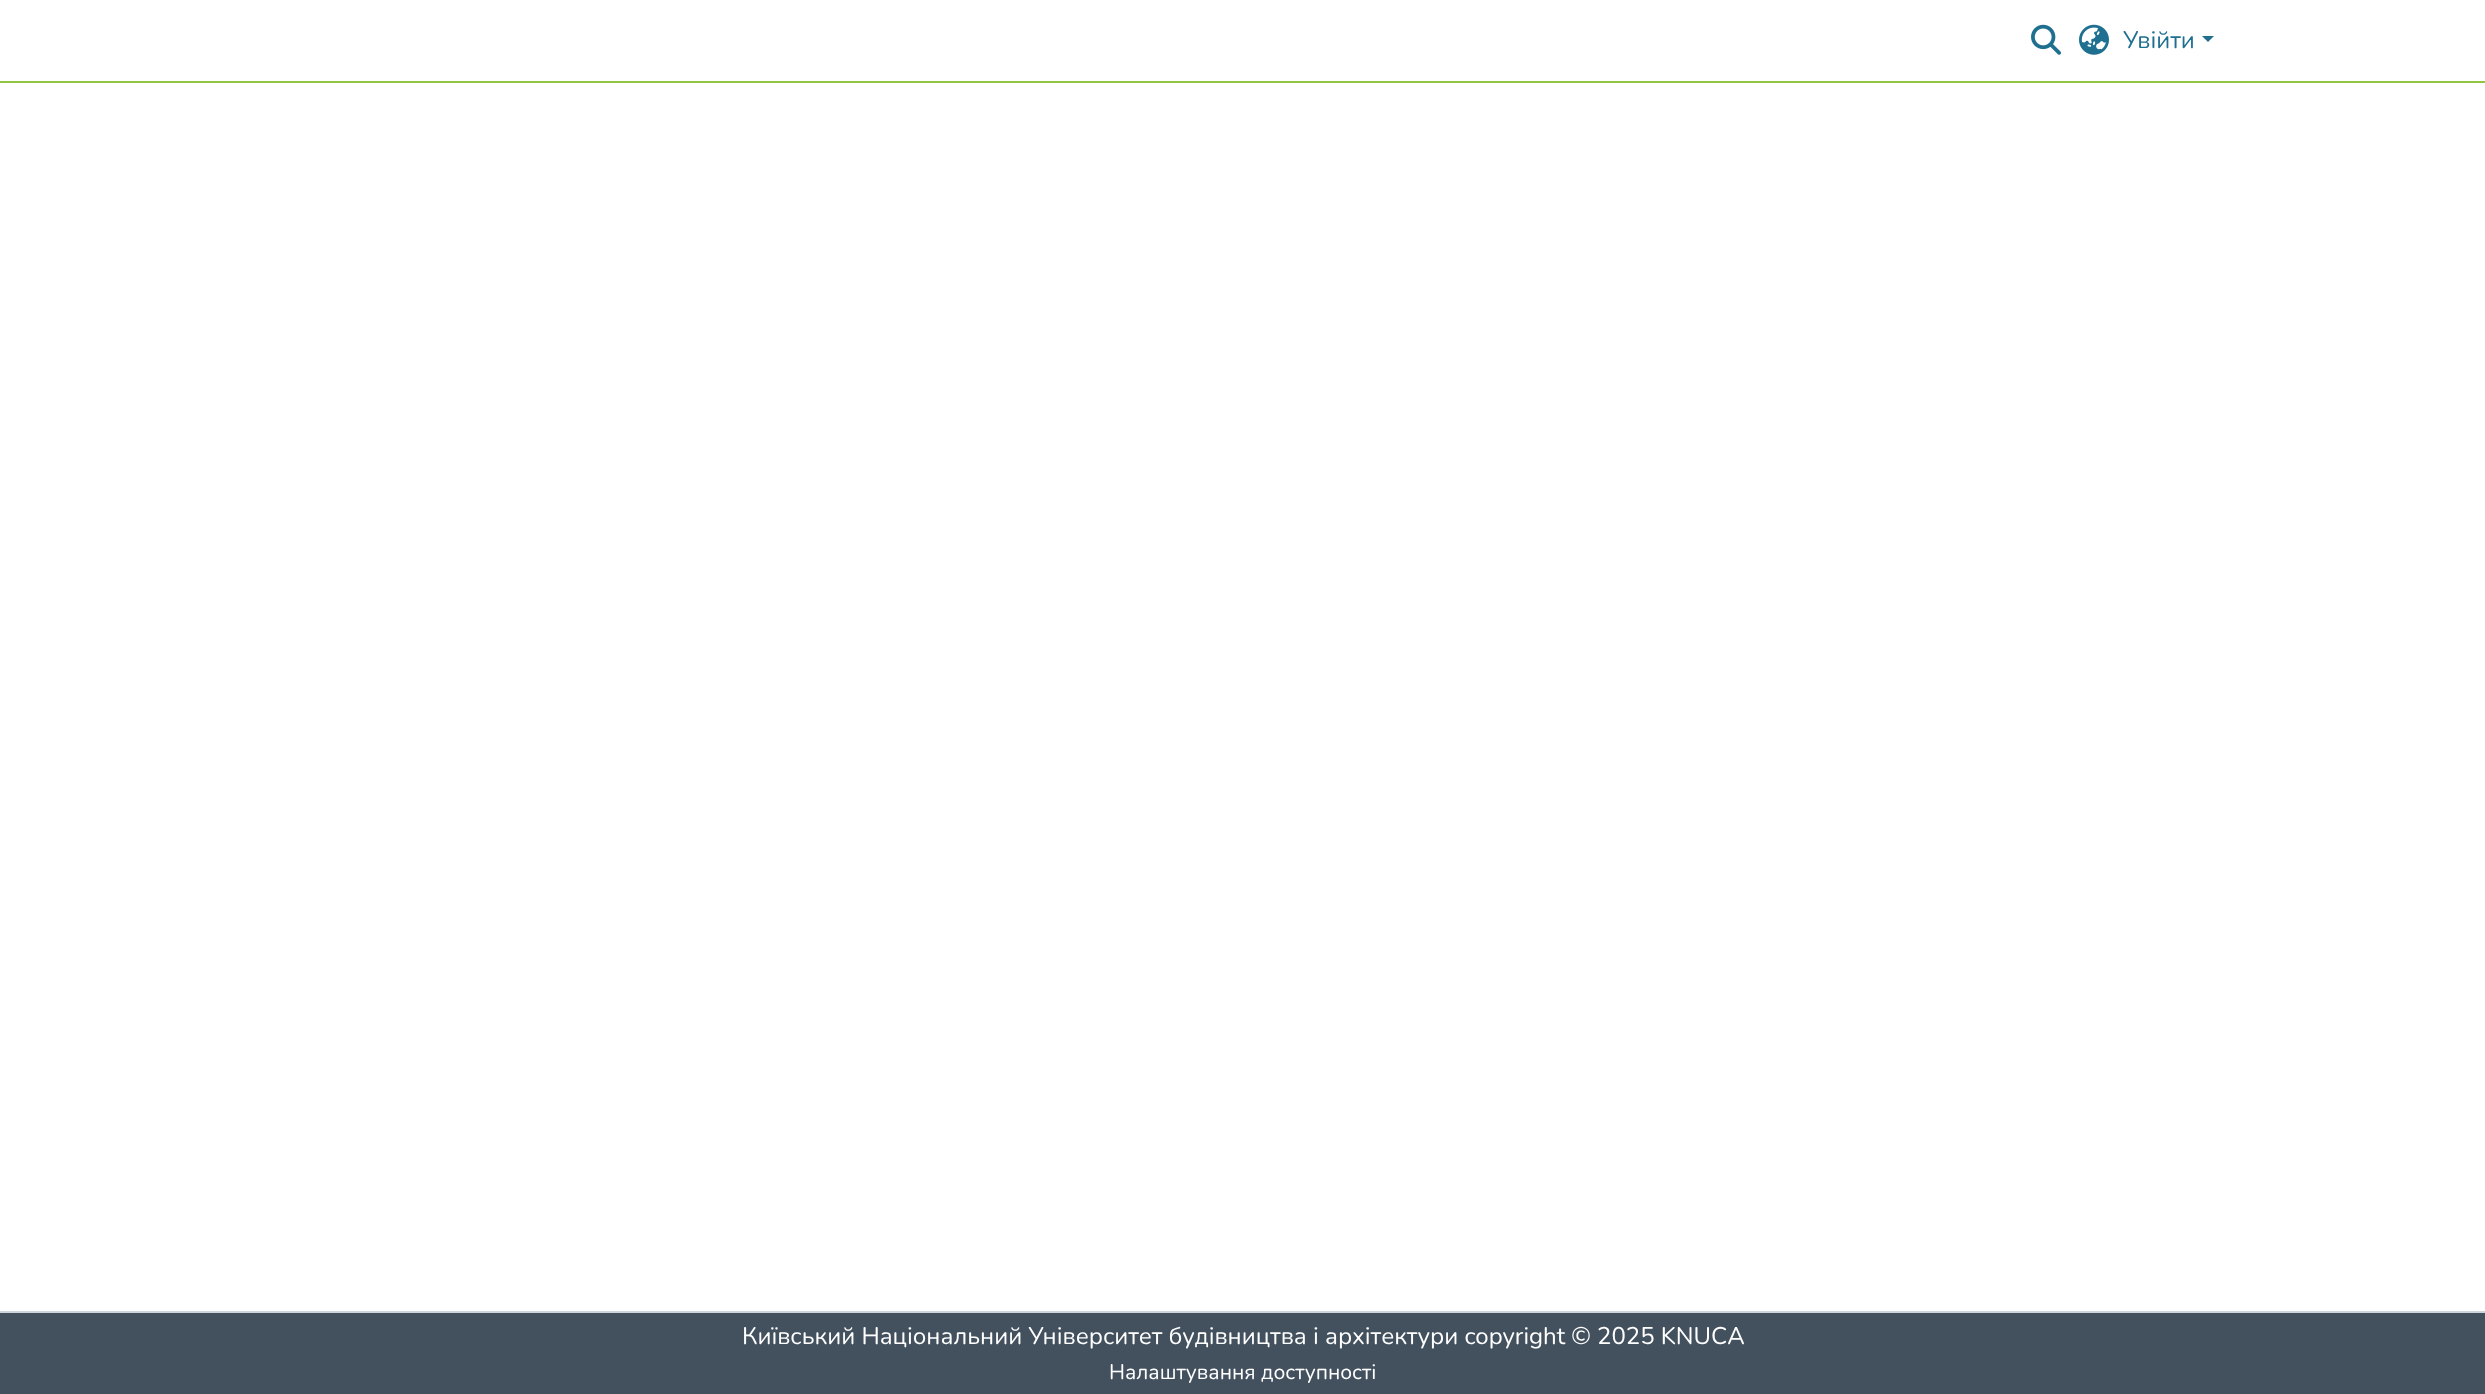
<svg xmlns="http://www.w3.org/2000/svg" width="2485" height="1394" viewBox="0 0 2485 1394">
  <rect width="100%" height="100%" fill="rgb(255,255,255)"/>
  <rect x="0" y="81" width="2485" height="2" fill="rgb(146,198,66)"/>
  <image x="2031" y="24" width="30" height="31" href="pic1.png"/>
  <image x="2079" y="24" width="30" height="31" href="pic2.png"/>
  <text x="2123" y="48" font-family="Nunito" font-size="24" fill="rgb(30,111,144)">Увійти</text>
  <path d="M2202 36H2214L2208 42Z" fill="rgb(30,111,144)"/>
  <rect x="0" y="1313" width="2485" height="81" fill="rgb(67,81,95)"/>
  <rect x="0" y="1311" width="2485" height="2" fill="rgb(206,212,218)"/>
  <text x="742" y="1344" font-family="Nunito" font-size="24" fill="rgb(255,255,255)">Київський Національний Університет будівництва і архітектури copyright © 2025 KNUCA</text>
  <text x="1109" y="1379" font-family="Nunito" font-size="21" fill="rgb(255,255,255)">Налаштування доступності</text>
</svg>
